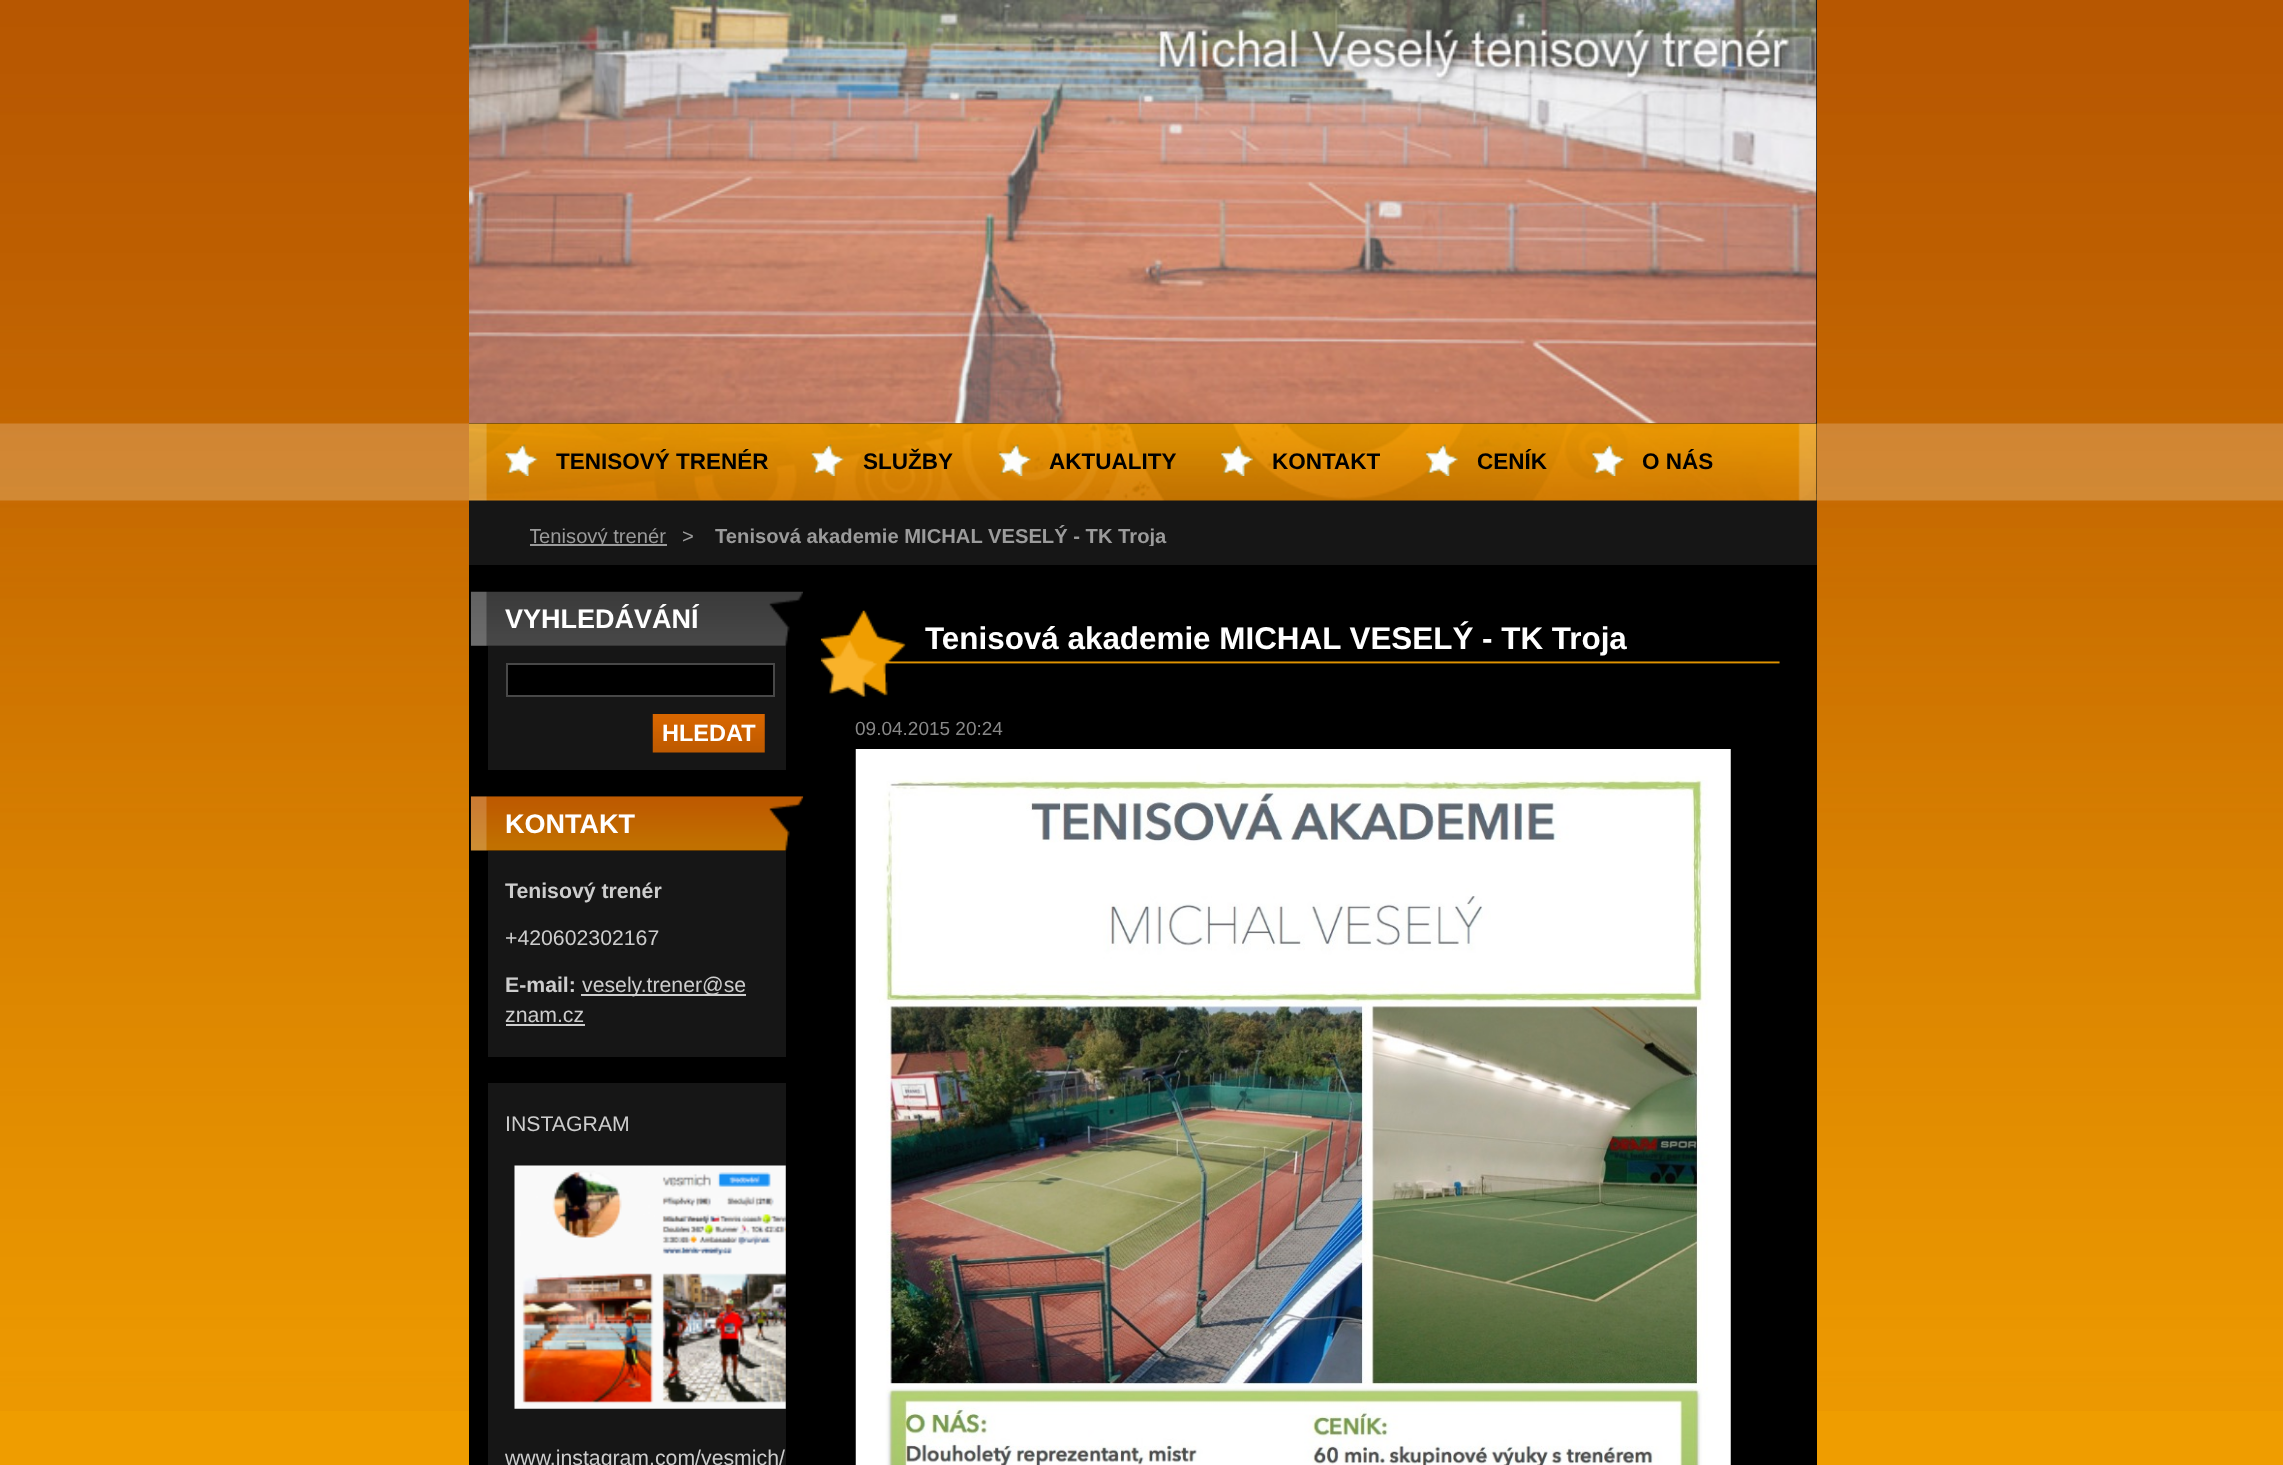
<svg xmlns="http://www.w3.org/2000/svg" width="2283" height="1465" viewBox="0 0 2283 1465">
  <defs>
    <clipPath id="clip1"><rect x="530" y="525" width="788" height="21"/></clipPath>
  </defs>
  <rect width="100%" height="100%" fill="rgb(239,157,0)"/>
  <image x="0" y="0" width="2283" height="1411" href="pic1.png"/>
  <rect x="469" y="0" width="1348" height="1465" fill="rgb(0,0,0)"/>
  <image x="469" y="0" width="1348" height="424" href="pic2.png"/>
  <rect x="469" y="494" width="1348" height="71" fill="rgb(22,22,22)"/>
  <image x="469" y="423" width="1348" height="78" href="pic3.png"/>
  <image x="505" y="444" width="33" height="32" href="pic4.png"/>
  <text x="556" y="469" font-family="Liberation Sans" font-size="22.5" font-weight="bold" fill="rgb(0,0,0)">TENISOVÝ TRENÉR</text>
  <image x="811" y="444" width="33" height="32" href="pic5.png"/>
  <text x="863" y="469" font-family="Liberation Sans" font-size="22.5" font-weight="bold" fill="rgb(0,0,0)">SLUŽBY</text>
  <image x="998" y="444" width="33" height="32" href="pic6.png"/>
  <text x="1049" y="469" font-family="Liberation Sans" font-size="22.5" font-weight="bold" fill="rgb(0,0,0)">AKTUALITY</text>
  <image x="1221" y="444" width="32" height="32" href="pic7.png"/>
  <text x="1272" y="469" font-family="Liberation Sans" font-size="22.5" font-weight="bold" fill="rgb(0,0,0)">KONTAKT</text>
  <image x="1425" y="444" width="33" height="32" href="pic8.png"/>
  <text x="1477" y="469" font-family="Liberation Sans" font-size="22.5" font-weight="bold" fill="rgb(0,0,0)">CENÍK</text>
  <image x="1592" y="444" width="32" height="32" href="pic9.png"/>
  <text x="1642" y="469" font-family="Liberation Sans" font-size="22.5" font-weight="bold" fill="rgb(0,0,0)">O NÁS</text>
  <rect x="530" y="544" width="137" height="2" fill="rgb(155,155,155)"/>
  <g clip-path="url(#clip1)">
    <text x="529" y="543" font-family="Liberation Sans" font-size="20.2" fill="rgb(155,155,155)">Tenisový trenér</text>
  </g>
  <text x="682" y="543" font-family="Liberation Sans" font-size="20.2" fill="rgb(155,155,155)">&gt;</text>
  <g clip-path="url(#clip1)">
    <text x="715" y="543" font-family="Liberation Sans" font-size="20.2" font-weight="bold" fill="rgb(155,155,155)">Tenisová akademie MICHAL VESELÝ - TK Troja</text>
  </g>
  <image x="470" y="591" width="333" height="55" href="pic10.png"/>
  <text x="505" y="628" font-family="Liberation Sans" font-size="27" font-weight="bold" fill="rgb(255,255,255)">VYHLEDÁVÁNÍ</text>
  <rect x="488" y="646" width="298" height="124" fill="rgb(22,22,22)"/>
  <rect x="507" y="664" width="267" height="32" fill="rgb(0,0,0)" stroke="rgb(72,72,72)" stroke-width="2"/>
  <image x="652" y="714" width="113" height="39" href="pic11.png"/>
  <text x="662" y="741" font-family="Liberation Sans" font-size="23.5" font-weight="bold" fill="rgb(255,255,255)">HLEDAT</text>
  <image x="470" y="796" width="334" height="55" href="pic12.png"/>
  <text x="505" y="833" font-family="Liberation Sans" font-size="27" font-weight="bold" fill="rgb(255,255,255)">KONTAKT</text>
  <rect x="488" y="851" width="298" height="206" fill="rgb(22,22,22)"/>
  <text x="505" y="898" font-family="Liberation Sans" font-size="21.25" font-weight="bold" fill="rgb(205,205,205)">Tenisový trenér</text>
  <text x="505" y="945" font-family="Liberation Sans" font-size="21.25" fill="rgb(205,205,205)">+420602302167</text>
  <text x="505" y="992" font-family="Liberation Sans" font-size="21.25" font-weight="bold" fill="rgb(205,205,205)">E-mail:</text>
  <rect x="581" y="994" width="165" height="2" fill="rgb(205,205,205)"/>
  <g font-family="Liberation Sans" font-size="21.25" fill="rgb(205,205,205)">
    <text x="582" y="992">vesely.trener@se</text>
    <text x="505" y="1022">znam.cz</text>
  </g>
  <rect x="506" y="1024" width="79" height="2" fill="rgb(205,205,205)"/>
  <rect x="488" y="1083" width="298" height="382" fill="rgb(22,22,22)"/>
  <text x="505" y="1131" font-family="Liberation Sans" font-size="21.25" fill="rgb(205,205,205)">INSTAGRAM</text>
  <image x="514" y="1165" width="272" height="244" href="pic13.png"/>
  <text x="505" y="1465" font-family="Liberation Sans" font-size="21.25" fill="rgb(205,205,205)">www.instagram.com/vesmich/</text>
  <image x="820" y="610" width="960" height="87" href="pic14.png"/>
  <text x="925" y="649" font-family="Liberation Sans" font-size="31.4" font-weight="bold" fill="rgb(255,255,255)">Tenisová akademie MICHAL VESELÝ - TK Troja</text>
  <text x="855" y="735" font-family="Liberation Sans" font-size="19" fill="rgb(136,136,136)">09.04.2015 20:24</text>
  <image x="855" y="749" width="876" height="716" href="pic15.png"/>
</svg>
